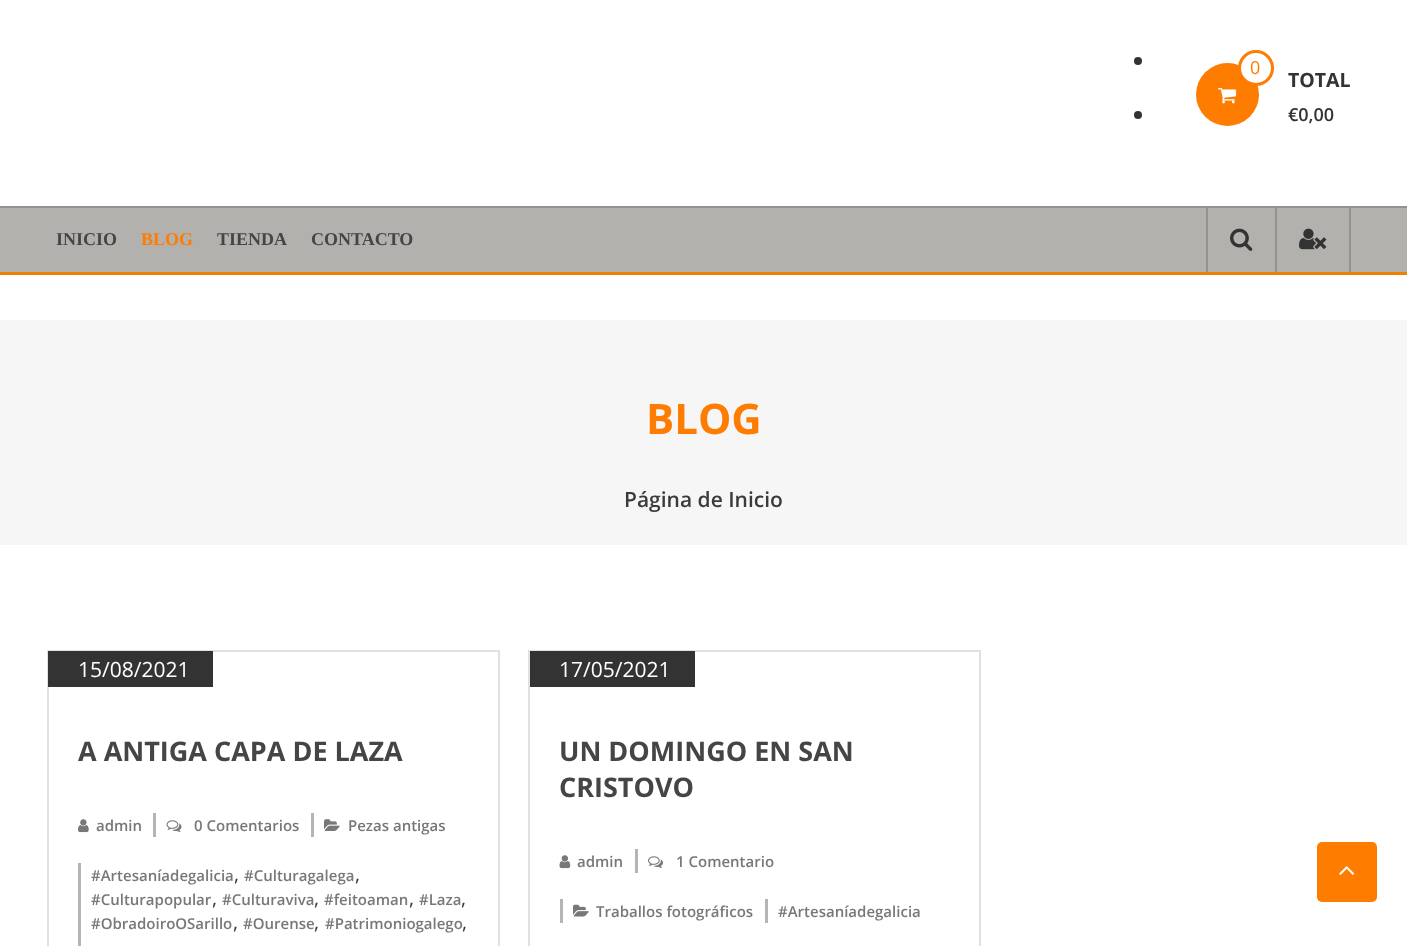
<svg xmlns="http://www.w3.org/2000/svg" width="1407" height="946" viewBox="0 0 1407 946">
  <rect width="100%" height="100%" fill="rgb(255,255,255)"/>
  <circle cx="1138" cy="61" r="4" fill="rgb(51,51,51)"/>
  <circle cx="1138" cy="115" r="4" fill="rgb(51,51,51)"/>
  <circle cx="1227.5" cy="94.5" r="31.5" fill="rgb(254,124,0)"/>
  <circle cx="1256" cy="68" r="16.5" fill="rgb(255,255,255)" stroke="rgb(254,124,0)" stroke-width="3"/>
  <text x="1250" y="74" font-family="Open Sans" font-size="18" fill="rgb(254,124,0)">0</text>
  <image x="1218" y="88" width="19" height="16" href="pic1.png"/>
  <text x="1288" y="87" font-family="Open Sans" font-size="19.5" font-weight="bold" fill="rgb(51,51,51)">TOTAL</text>
  <text x="1288" y="121" font-family="Open Sans" font-size="18" font-weight="600" fill="rgb(51,51,51)">€0,00</text>
  <rect x="0" y="208" width="1407" height="64" fill="rgb(179,177,174)"/>
  <rect x="0" y="206" width="1407" height="2" fill="rgb(150,145,142)"/>
  <rect x="0" y="272" width="1407" height="3" fill="rgb(237,130,0)"/>
  <text x="56" y="245" font-family="Liberation Serif" font-size="18" font-weight="bold" fill="rgb(69,69,69)">INICIO</text>
  <text x="141" y="245" font-family="Liberation Serif" font-size="18" font-weight="bold" fill="rgb(254,124,0)">BLOG</text>
  <g font-family="Liberation Serif" font-size="18" font-weight="bold" fill="rgb(69,69,69)">
    <text x="217" y="245">TIENDA</text>
    <text x="311" y="245">CONTACTO</text>
  </g>
  <rect x="1206" y="207" width="2" height="65" fill="rgb(150,145,142)"/>
  <image x="1230" y="228" width="23" height="23" href="pic2.png"/>
  <rect x="1349" y="207" width="2" height="65" fill="rgb(150,145,142)"/>
  <rect x="1275" y="207" width="2" height="65" fill="rgb(150,145,142)"/>
  <image x="1299" y="228" width="28" height="22" href="pic3.png"/>
  <rect x="0" y="320" width="1407" height="225" fill="rgb(246,246,246)"/>
  <text x="646" y="434" font-family="Open Sans" font-size="42" font-weight="bold" fill="rgb(254,124,0)">BLOG</text>
  <text x="624" y="507" font-family="Open Sans" font-size="21" font-weight="600" fill="rgb(59,59,59)">Página de Inicio</text>
  <rect x="48" y="651" width="451" height="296" fill="none" stroke="rgb(225,225,225)" stroke-width="2"/>
  <rect x="48" y="651" width="165" height="36" fill="rgb(51,51,51)"/>
  <text x="78" y="677" font-family="Open Sans" font-size="21" fill="rgb(255,255,255)">15/08/2021</text>
  <text x="78" y="761" font-family="Open Sans" font-size="27" font-weight="bold" fill="rgb(69,69,69)">A ANTIGA CAPA DE LAZA</text>
  <image x="78" y="819" width="11" height="14" href="pic4.png"/>
  <text x="96" y="831" font-family="Open Sans" font-size="15" font-weight="600" fill="rgb(120,120,120)">admin</text>
  <rect x="153" y="813" width="3" height="24" fill="rgb(181,181,181)"/>
  <image x="166" y="820" width="16" height="12" href="pic5.png"/>
  <text x="194" y="831" font-family="Open Sans" font-size="15" font-weight="600" fill="rgb(120,120,120)">0 Comentarios</text>
  <rect x="311" y="813" width="3" height="24" fill="rgb(181,181,181)"/>
  <image x="324" y="819" width="16" height="12" href="pic6.png"/>
  <text x="348" y="831" font-family="Open Sans" font-size="15" font-weight="600" fill="rgb(120,120,120)">Pezas antigas</text>
  <rect x="78" y="863" width="3" height="83" fill="rgb(181,181,181)"/>
  <text x="91" y="881" font-family="Open Sans" font-size="15" font-weight="600" fill="rgb(120,120,120)">#Artesaníadegalicia</text>
  <text x="234" y="881" font-family="Open Sans" font-size="19.5" fill="rgb(51,51,51)">,</text>
  <text x="244" y="881" font-family="Open Sans" font-size="15" font-weight="600" fill="rgb(120,120,120)">#Culturagalega</text>
  <text x="355" y="881" font-family="Open Sans" font-size="19.5" fill="rgb(51,51,51)">,</text>
  <text x="91" y="905" font-family="Open Sans" font-size="15" font-weight="600" fill="rgb(120,120,120)">#Culturapopular</text>
  <text x="212" y="905" font-family="Open Sans" font-size="19.5" fill="rgb(51,51,51)">,</text>
  <text x="222" y="905" font-family="Open Sans" font-size="15" font-weight="600" fill="rgb(120,120,120)">#Culturaviva</text>
  <text x="314" y="905" font-family="Open Sans" font-size="19.5" fill="rgb(51,51,51)">,</text>
  <text x="324" y="905" font-family="Open Sans" font-size="15" font-weight="600" fill="rgb(120,120,120)">#feitoaman</text>
  <text x="409" y="905" font-family="Open Sans" font-size="19.5" fill="rgb(51,51,51)">,</text>
  <text x="419" y="905" font-family="Open Sans" font-size="15" font-weight="600" fill="rgb(120,120,120)">#Laza</text>
  <text x="461" y="905" font-family="Open Sans" font-size="19.5" fill="rgb(51,51,51)">,</text>
  <text x="91" y="929" font-family="Open Sans" font-size="15" font-weight="600" fill="rgb(120,120,120)">#ObradoiroOSarillo</text>
  <text x="233" y="929" font-family="Open Sans" font-size="19.5" fill="rgb(51,51,51)">,</text>
  <text x="243" y="929" font-family="Open Sans" font-size="15" font-weight="600" fill="rgb(120,120,120)">#Ourense</text>
  <text x="314" y="929" font-family="Open Sans" font-size="19.5" fill="rgb(51,51,51)">,</text>
  <text x="325" y="929" font-family="Open Sans" font-size="15" font-weight="600" fill="rgb(120,120,120)">#Patrimoniogalego</text>
  <text x="462" y="929" font-family="Open Sans" font-size="19.5" fill="rgb(51,51,51)">,</text>
  <rect x="529" y="651" width="451" height="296" fill="none" stroke="rgb(225,225,225)" stroke-width="2"/>
  <rect x="530" y="651" width="165" height="36" fill="rgb(51,51,51)"/>
  <text x="559" y="677" font-family="Open Sans" font-size="21" fill="rgb(255,255,255)">17/05/2021</text>
  <g font-family="Open Sans" font-size="27" font-weight="bold" fill="rgb(69,69,69)">
    <text>
      <tspan x="559" y="761">UN DOMINGO EN SAN</tspan>
      <tspan x="559" y="797">CRISTOVO</tspan>
    </text>
  </g>
  <image x="559" y="855" width="12" height="14" href="pic7.png"/>
  <text x="577" y="867" font-family="Open Sans" font-size="15" font-weight="600" fill="rgb(120,120,120)">admin</text>
  <rect x="635" y="849" width="3" height="24" fill="rgb(181,181,181)"/>
  <image x="648" y="856" width="15" height="12" href="pic8.png"/>
  <text x="676" y="867" font-family="Open Sans" font-size="15" font-weight="600" fill="rgb(120,120,120)">1 Comentario</text>
  <rect x="560" y="899" width="3" height="24" fill="rgb(181,181,181)"/>
  <image x="573" y="904" width="16" height="13" href="pic9.png"/>
  <text x="596" y="917" font-family="Open Sans" font-size="15" font-weight="600" fill="rgb(120,120,120)">Traballos fotográficos</text>
  <rect x="765" y="899" width="3" height="24" fill="rgb(181,181,181)"/>
  <text x="778" y="917" font-family="Open Sans" font-size="15" font-weight="600" fill="rgb(120,120,120)">#Artesaníadegalicia</text>
  <rect x="1317" y="842" width="60" height="60" rx="5" fill="rgb(254,124,0)"/>
  <image x="1339" y="866" width="16" height="9" href="pic10.png"/>
</svg>
